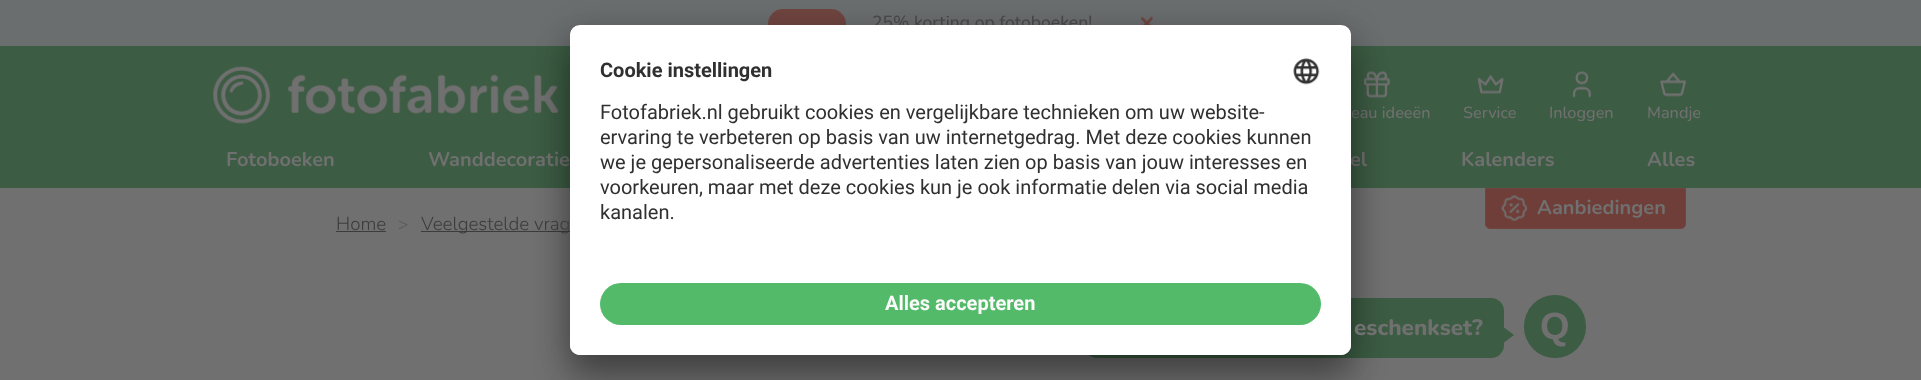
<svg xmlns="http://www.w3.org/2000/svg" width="1921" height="380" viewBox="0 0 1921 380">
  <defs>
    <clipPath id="clip1"><rect x="570" y="25" width="781" height="330" rx="10"/></clipPath>
    <clipPath id="clip2"><path d="M580 25H1341C1346.5 25 1351 29.5 1351 35V273H570V35C570 29.5 574.5 25 580 25Z"/></clipPath>
  </defs>
  <rect width="100%" height="100%" fill="rgb(112,112,112)"/>
  <rect x="0" y="46" width="1921" height="142" fill="rgb(60,92,67)"/>
  <rect x="0" y="0" width="1921" height="46" fill="rgb(107,110,111)"/>
  <rect x="768" y="9" width="78" height="30" rx="15" fill="rgb(112,69,64)"/>
  <text x="872" y="28" font-family="Nunito" font-size="17.5" font-weight="500" fill="rgb(75,75,75)">25% korting op fotoboeken!</text>
  <image x="1140" y="16" width="13" height="9" href="pic1.png"/>
  <image x="213" y="66" width="346" height="58" href="pic2.png"/>
  <image x="1364" y="71" width="26" height="27" href="pic3.png"/>
  <text x="1351" y="118" font-family="Nunito" font-size="16.25" font-weight="500" fill="rgb(112,112,112)">eau ideeën</text>
  <image x="1477" y="74" width="27" height="20" href="pic4.png"/>
  <text x="1463" y="118" font-family="Nunito" font-size="16.25" font-weight="500" fill="rgb(112,112,112)">Service</text>
  <image x="1572" y="71" width="19" height="27" href="pic5.png"/>
  <text x="1549" y="118" font-family="Nunito" font-size="16.25" font-weight="500" fill="rgb(112,112,112)">Inloggen</text>
  <image x="1660" y="72" width="26" height="25" href="pic6.png"/>
  <text x="1647" y="118" font-family="Nunito" font-size="16.25" font-weight="500" fill="rgb(112,112,112)">Mandje</text>
  <g font-family="Nunito" font-size="20" font-weight="bold" fill="rgb(112,112,112)">
    <text x="226" y="166">Fotoboeken</text>
    <text x="428" y="166">Wanddecoratie</text>
    <text x="1350" y="166">el</text>
    <text x="1461" y="166">Kalenders</text>
    <text x="1647" y="166">Alles</text>
  </g>
  <path d="M1485.5 188.5H1685.5V224C1685.5 226.5 1683.5 228.5 1681 228.5H1490C1487.5 228.5 1485.5 226.5 1485.5 224Z" fill="rgb(112,62,56)" stroke="rgb(112,69,64)"/>
  <image x="1501" y="195" width="27" height="27" href="pic7.png"/>
  <text x="1537" y="214" font-family="Nunito" font-size="20" font-weight="bold" fill="rgb(112,112,112)">Aanbiedingen</text>
  <rect x="421" y="231" width="149" height="1" fill="rgb(60,60,60)"/>
  <rect x="1084" y="298" width="420" height="60" rx="13" fill="rgb(60,92,67)"/>
  <rect x="570" y="50" width="781" height="330" rx="10" fill="rgba(0,0,0,0.3)" filter="blur(17.5px)"/>
  <rect x="570" y="31" width="781" height="330" rx="10" fill="rgba(0,0,0,0.22)" filter="blur(16px)"/>
  <rect x="570" y="25" width="781" height="330" rx="10" fill="rgb(255,255,255)"/>
  <g clip-path="url(#clip1)">
    <g clip-path="url(#clip2)">
      <rect x="570" y="26" width="781" height="247" fill="rgb(255,255,255)"/>
    </g>
  </g>
  <text x="600" y="77" font-family="Roboto" font-size="20" font-weight="bold" fill="rgb(48,48,48)">Cookie instellingen</text>
  <image x="1293" y="58" width="27" height="27" href="pic8.png"/>
  <g font-family="Roboto" font-size="20" fill="rgb(48,48,48)">
    <text>
      <tspan x="600" y="119">Fotofabriek.nl gebruikt cookies en vergelijkbare technieken om uw website-</tspan>
      <tspan x="600" y="144">ervaring te verbeteren op basis van uw internetgedrag. Met deze cookies kunnen</tspan>
      <tspan x="600" y="169">we je gepersonaliseerde advertenties laten zien op basis van jouw interesses en</tspan>
      <tspan x="600" y="194">voorkeuren, maar met deze cookies kun je ook informatie delen via social media</tspan>
      <tspan x="600" y="219">kanalen.</tspan>
    </text>
  </g>
  <path d="M570 273H1351V345C1351 350.5 1346.5 355 1341 355H580C574.5 355 570 350.5 570 345Z" fill="rgb(255,255,255)"/>
  <rect x="600" y="283" width="721" height="42" rx="21" fill="rgb(82,186,105)"/>
  <text x="885" y="310" font-family="Roboto" font-size="20" font-weight="bold" fill="rgb(250,250,250)">Alles accepteren</text>
  <text x="336" y="230" font-family="Nunito" font-size="18.75" font-weight="300" fill="rgb(60,60,60)">Home</text>
  <rect x="336" y="231" width="50" height="1" fill="rgb(60,60,60)"/>
  <text x="398" y="230" font-family="Nunito" font-size="17.5" font-weight="300" fill="rgb(90,90,90)">&gt;</text>
  <text x="421" y="230" font-family="Nunito" font-size="18.75" font-weight="300" fill="rgb(60,60,60)">Veelgestelde vrag</text>
  <text x="1354" y="335" font-family="Nunito" font-size="22.5" font-weight="800" fill="rgb(112,112,112)">eschenkset?</text>
  <path d="M1504 342.5V327.5L1514 335Z" fill="rgb(60,92,67)"/>
  <rect x="1524" y="295" width="62" height="63" rx="31" fill="rgb(60,92,67)"/>
  <text x="1540" y="339" font-family="Liberation Sans" font-size="38" font-weight="bold" fill="rgb(112,112,112)">Q</text>
</svg>
